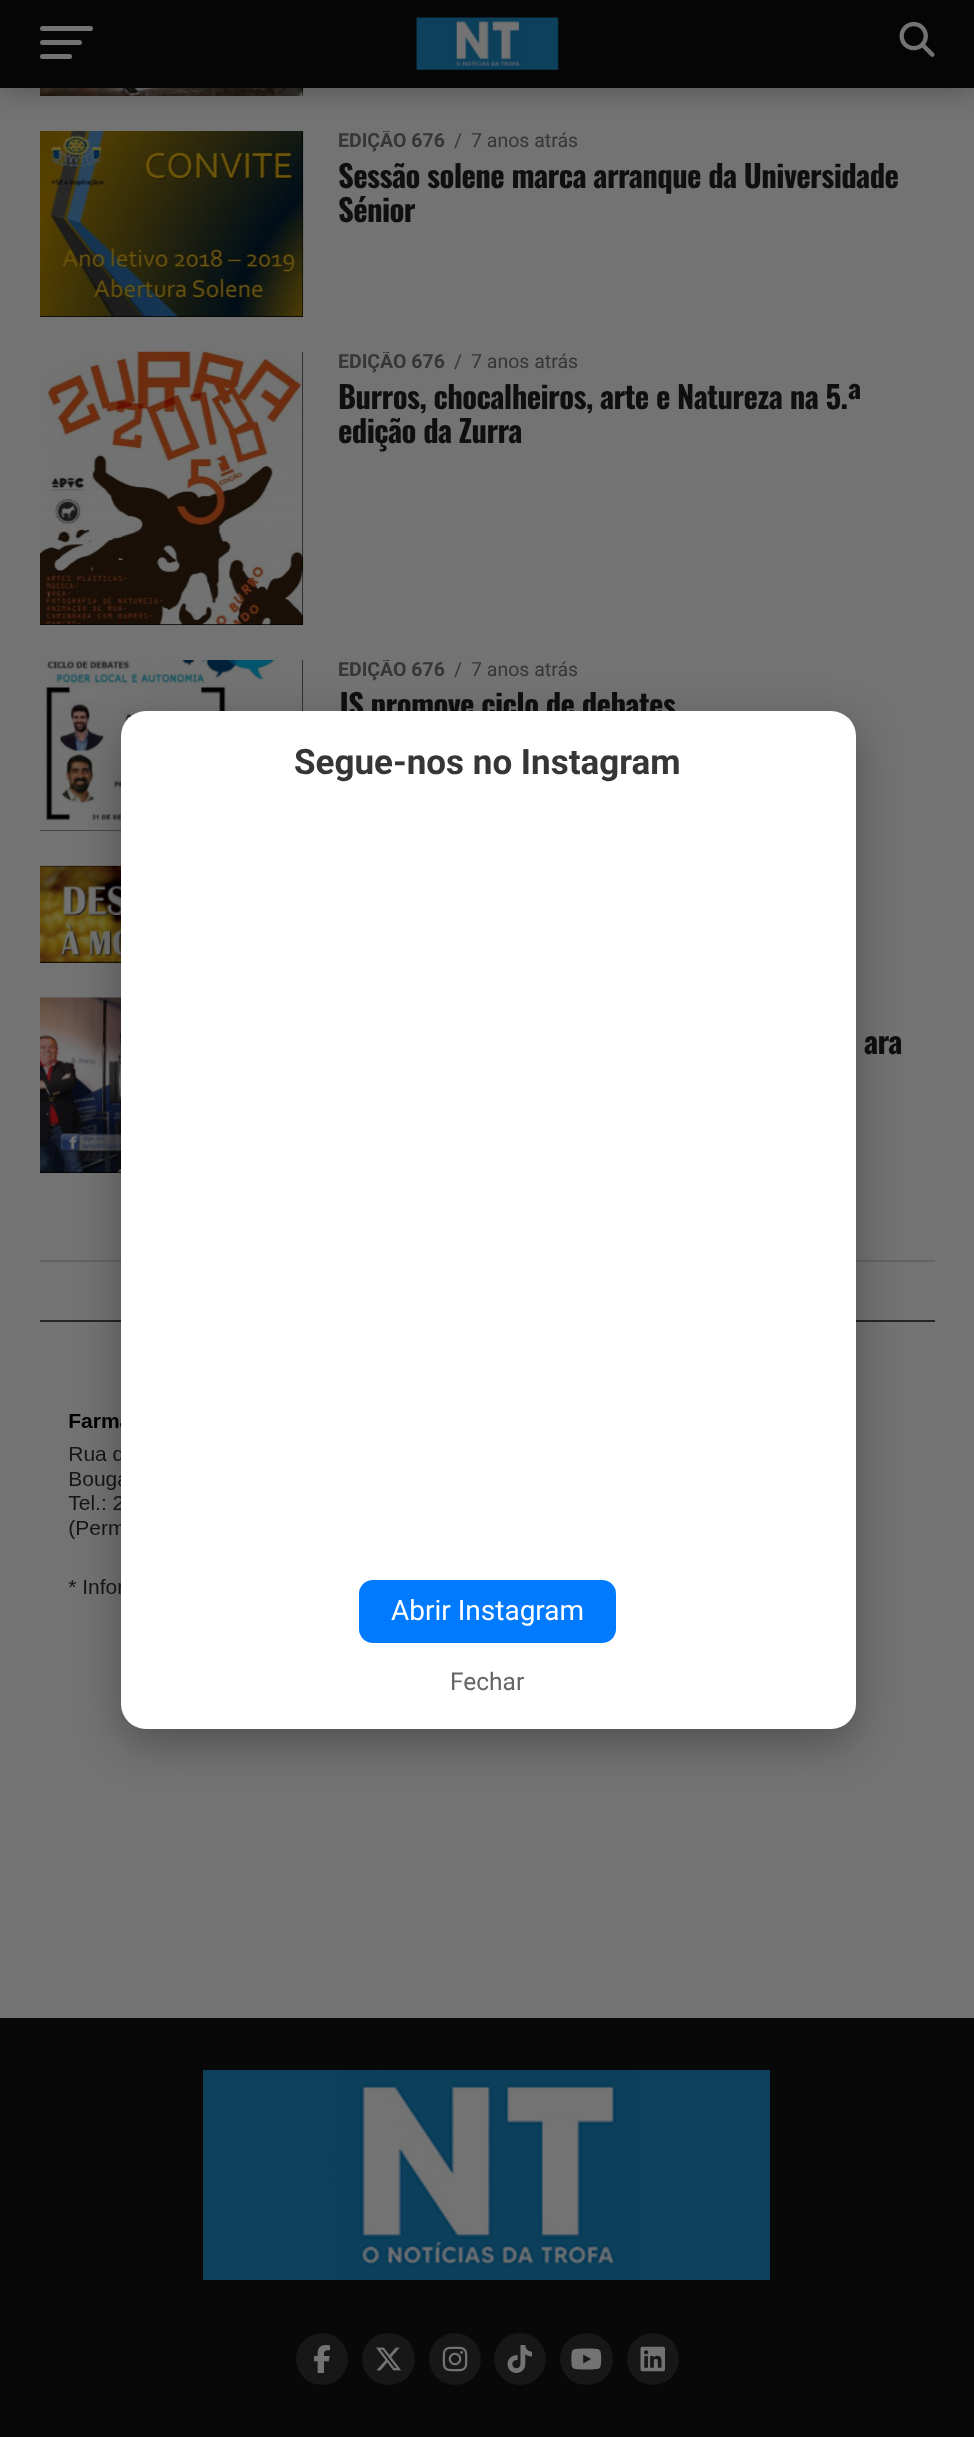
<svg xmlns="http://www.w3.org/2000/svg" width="974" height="2437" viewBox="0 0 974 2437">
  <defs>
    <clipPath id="clip1"><rect x="40" y="131" width="895" height="186"/></clipPath>
    <clipPath id="clip2"><rect x="40" y="352" width="895" height="273"/></clipPath>
    <clipPath id="clip3"><rect x="40" y="660" width="895" height="171"/></clipPath>
  </defs>
  <rect width="100%" height="100%" fill="rgb(115,115,115)"/>
  <rect x="302" y="88" width="1" height="8" fill="rgb(0,0,0)"/>
  <image x="40" y="88" width="264" height="8" href="pic3.png"/>
  <rect x="40" y="131" width="263" height="186" fill="rgb(0,0,0)"/>
  <image x="40" y="131" width="264" height="186" href="pic4.png"/>
  <rect x="0" y="2" width="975" height="87" fill="rgba(0,0,0,0.3)" filter="blur(14px)"/>
  <rect x="0" y="0" width="974" height="88" fill="rgb(5,5,5)"/>
  <rect x="40" y="26" width="53" height="5" rx="2.5" fill="rgb(115,115,115)"/>
  <rect x="40" y="40" width="42" height="5" rx="2.5" fill="rgb(115,115,115)"/>
  <rect x="40" y="54" width="32" height="5" rx="2.5" fill="rgb(115,115,115)"/>
  <image x="415" y="17" width="144" height="53" href="pic1.png"/>
  <image x="899" y="21" width="36" height="36" href="pic2.png"/>
  <g clip-path="url(#clip1)">
    <text x="338" y="147" font-family="Roboto" font-size="19.5" font-weight="bold" fill="rgb(54,54,54)">EDIÇÃO 676</text>
  </g>
  <g font-family="Roboto" font-size="19.5" fill="rgb(54,54,54)">
    <text x="454" y="147">/</text>
    <text x="471" y="147">7 anos atrás</text>
  </g>
  <g font-family="Oswald" font-size="30.75" font-weight="bold" letter-spacing="-0.6" fill="rgb(15,15,15)">
    <text>
      <tspan x="338" y="188">Sessão solene marca arranque da Universidade</tspan>
      <tspan x="338" y="222">Sénior</tspan>
    </text>
  </g>
  <rect x="40" y="352" width="263" height="273" fill="rgb(0,0,0)"/>
  <image x="40" y="351" width="264" height="274" href="pic5.png"/>
  <g clip-path="url(#clip2)">
    <text x="338" y="368" font-family="Roboto" font-size="19.5" font-weight="bold" fill="rgb(54,54,54)">EDIÇÃO 676</text>
  </g>
  <g font-family="Roboto" font-size="19.5" fill="rgb(54,54,54)">
    <text x="454" y="368">/</text>
    <text x="471" y="368">7 anos atrás</text>
  </g>
  <g font-family="Oswald" font-size="30.75" font-weight="bold" letter-spacing="-0.6" fill="rgb(15,15,15)">
    <text>
      <tspan x="338" y="409">Burros, chocalheiros, arte e Natureza na 5.ª</tspan>
      <tspan x="338" y="443">edição da Zurra</tspan>
    </text>
  </g>
  <rect x="40" y="660" width="263" height="171" fill="rgb(0,0,0)"/>
  <image x="40" y="660" width="263" height="171" href="pic6.png"/>
  <g clip-path="url(#clip3)">
    <text x="338" y="676" font-family="Roboto" font-size="19.5" font-weight="bold" fill="rgb(54,54,54)">EDIÇÃO 676</text>
  </g>
  <g font-family="Roboto" font-size="19.5" fill="rgb(54,54,54)">
    <text x="454" y="676">/</text>
    <text x="471" y="676">7 anos atrás</text>
  </g>
  <text x="338" y="717" font-family="Oswald" font-size="30.75" font-weight="bold" letter-spacing="-0.6" fill="rgb(15,15,15)">JS promove ciclo de debates</text>
  <rect x="40" y="866" width="81" height="97" fill="rgb(0,0,0)"/>
  <image x="40" y="865" width="81" height="98" href="pic7.png"/>
  <rect x="40" y="1171" width="81" height="2" fill="rgb(0,0,0)"/>
  <image x="40" y="996" width="81" height="177" href="pic8.png"/>
  <text x="864" y="1054" font-family="Oswald" font-size="30.75" font-weight="bold" letter-spacing="-0.6" fill="rgb(15,15,15)">ara</text>
  <rect x="40" y="1260" width="895" height="2" fill="rgb(99,99,99)"/>
  <rect x="40" y="1320" width="895" height="2" fill="rgb(38,38,38)"/>
  <image x="68" y="1413" width="53" height="231" href="pic9.png"/>
  <rect x="0" y="2018" width="974" height="419" fill="rgb(8,8,8)"/>
  <image x="203" y="2070" width="567" height="210" href="pic10.png"/>
  <circle cx="322" cy="2359" r="26" fill="rgb(23,23,23)"/>
  <image x="314" y="2345" width="16" height="28" href="pic11.png"/>
  <rect x="362" y="2333" width="53" height="52" rx="26" fill="rgb(23,23,23)"/>
  <image x="376" y="2347" width="25" height="24" href="pic12.png"/>
  <circle cx="455" cy="2359" r="26" fill="rgb(23,23,23)"/>
  <image x="442" y="2346" width="26" height="26" href="pic13.png"/>
  <circle cx="520" cy="2359" r="26" fill="rgb(23,23,23)"/>
  <image x="507" y="2345" width="25" height="28" href="pic14.png"/>
  <rect x="560" y="2333" width="53" height="52" rx="26" fill="rgb(23,23,23)"/>
  <image x="571" y="2348" width="31" height="22" href="pic15.png"/>
  <circle cx="653" cy="2359" r="26" fill="rgb(23,23,23)"/>
  <image x="640" y="2346" width="25" height="26" href="pic16.png"/>
  <rect x="121" y="725" width="735" height="1018" rx="25" fill="rgba(0,0,0,0.3)" filter="blur(22px)"/>
  <rect x="121" y="711" width="735" height="1018" rx="25" fill="rgb(255,255,255)"/>
  <text x="294" y="774" font-family="Roboto" font-size="35" font-weight="bold" fill="rgb(54,54,54)">Segue-nos no Instagram</text>
  <rect x="359" y="1580" width="257" height="63" rx="14" fill="rgb(0,123,255)"/>
  <text x="391" y="1620" font-family="Roboto" font-size="28" fill="rgb(255,255,255)">Abrir Instagram</text>
  <text x="450" y="1690" font-family="Roboto" font-size="24.5" fill="rgb(102,102,102)">Fechar</text>
</svg>
